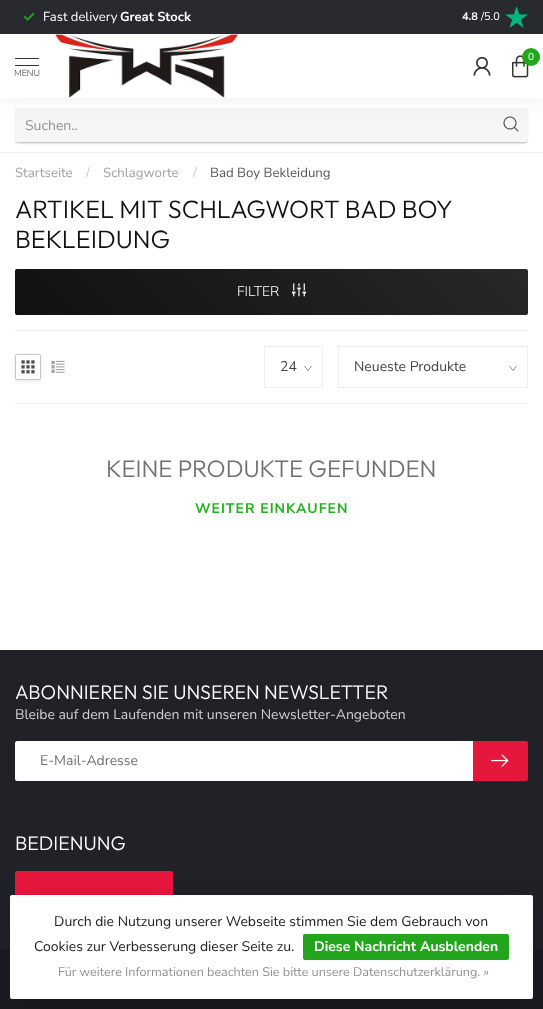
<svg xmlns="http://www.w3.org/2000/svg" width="543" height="1009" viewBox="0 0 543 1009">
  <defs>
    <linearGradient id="g1" gradientUnits="userSpaceOnUse" x1="132" y1="432" x2="411" y2="152"><stop offset="0" stop-color="rgb(17,17,17)"/><stop offset="1" stop-color="rgb(40,40,40)"/></linearGradient>
    <clipPath id="clip1"><path d="M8 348H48V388H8ZM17 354H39C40 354 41 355 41 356V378C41 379 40 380 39 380H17C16 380 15 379 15 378V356C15 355 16 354 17 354Z" clip-rule="evenodd"/></clipPath>
  </defs>
  <rect width="100%" height="100%" fill="rgb(255,255,255)"/>
  <rect x="16" y="111" width="511" height="32" rx="2" fill="rgba(155,155,155,0.75)" filter="blur(1px)"/>
  <rect x="15" y="108" width="513" height="34" rx="3" fill="rgb(255,255,255)"/>
  <rect x="15" y="108" width="513" height="34" fill="rgba(51,51,51,0.05)"/>
  <image x="503" y="116" width="16" height="16" href="pic6.png"/>
  <rect x="0" y="0" width="543" height="98" fill="rgba(0,0,0,0.07)" filter="blur(10px)"/>
  <rect x="0" y="34" width="543" height="64" fill="rgb(255,255,255)"/>
  <rect x="0" y="0" width="543" height="34" fill="rgb(40,42,48)"/>
  <image x="23" y="12" width="12" height="9" href="pic1.png"/>
  <text x="43" y="21" font-family="Nunito Sans" font-size="13" fill="rgb(255,255,255)">Fast delivery</text>
  <text x="120" y="21" font-family="Nunito Sans" font-size="13" font-weight="bold" fill="rgb(255,255,255)">Great Stock</text>
  <text x="462" y="20" font-family="Nunito Sans" font-size="11" font-weight="bold" fill="rgb(255,255,255)">4.8</text>
  <text x="481" y="20" font-family="Nunito Sans" font-size="11" fill="rgb(255,255,255)">/5.0</text>
  <image x="505" y="6" width="23" height="22" href="pic2.png"/>
  <image x="55" y="34" width="183" height="64" href="pic3.png"/>
  <image x="473" y="56" width="18" height="20" href="pic4.png"/>
  <image x="512" y="55" width="17" height="23" href="pic5.png"/>
  <circle cx="531" cy="57" r="9" fill="rgb(35,166,30)"/>
  <text x="528" y="60" font-family="Nunito Sans" font-size="10" fill="rgb(255,255,255)">0</text>
  <rect x="15" y="58" width="24" height="1" fill="rgb(51,51,51)"/>
  <rect x="15" y="65" width="24" height="1" fill="rgb(51,51,51)"/>
  <text x="14" y="76" font-family="Nunito Sans" font-size="9" font-weight="300" fill="rgb(51,51,51)">MENU</text>
  <rect x="0" y="152" width="543" height="1" fill="rgb(238,238,238)"/>
  <text x="25" y="130" font-family="Nunito Sans" font-size="14" fill="rgb(146,146,146)">Suchen..</text>
  <text x="15" y="177" font-family="Nunito Sans" font-size="13.25" fill="rgb(162,162,162)">Startseite</text>
  <text x="86" y="177" font-family="Nunito Sans" font-size="13.25" fill="rgb(199,199,199)">/</text>
  <text x="103" y="177" font-family="Nunito Sans" font-size="13.25" fill="rgb(162,162,162)">Schlagworte</text>
  <text x="193" y="177" font-family="Nunito Sans" font-size="13.25" fill="rgb(199,199,199)">/</text>
  <text x="210" y="177" font-family="Nunito Sans" font-size="13.25" fill="rgb(87,87,87)">Bad Boy Bekleidung</text>
  <g font-family="Outfit" font-size="25.25" font-weight="300" fill="rgb(17,17,17)">
    <text>
      <tspan x="15" y="218">ARTIKEL MIT SCHLAGWORT BAD BOY</tspan>
      <tspan x="15" y="248">BEKLEIDUNG</tspan>
    </text>
  </g>
  <rect x="15" y="269" width="513" height="46" rx="2" fill="url(#g1)"/>
  <text x="237" y="296" font-family="Nunito Sans" font-size="14" font-weight="300" fill="rgb(255,255,255)">FILTER</text>
  <image x="292" y="283" width="14" height="14" href="pic7.png"/>
  <rect x="15" y="330" width="513" height="1" fill="rgb(238,238,238)"/>
  <rect x="15" y="403" width="513" height="1" fill="rgb(238,238,238)"/>
  <g clip-path="url(#clip1)">
    <rect x="15" y="355" width="26" height="26" rx="2" fill="rgba(0,0,0,0.1)" filter="blur(2px)"/>
  </g>
  <rect x="15.5" y="354.5" width="25" height="25" rx="1.5" fill="none" stroke="rgb(198,198,198)"/>
  <image x="21" y="360" width="14" height="14" href="pic8.png"/>
  <image x="51" y="360" width="14" height="13" href="pic9.png"/>
  <path d="M311.5 366L308 370.5L304.5 366" fill="none" stroke="rgb(89,89,89)" stroke-width="0.7"/>
  <rect x="264.5" y="346.5" width="58" height="41" fill="none" stroke="rgb(238,238,238)"/>
  <text x="280" y="371" font-family="Nunito Sans" font-size="14" fill="rgb(68,68,68)">24</text>
  <path d="M516.5 366L513 370.5L509.5 366" fill="none" stroke="rgb(89,89,89)" stroke-width="0.7"/>
  <rect x="338.5" y="346.5" width="189" height="41" fill="none" stroke="rgb(238,238,238)"/>
  <text x="354" y="371" font-family="Nunito Sans" font-size="14" fill="rgb(68,68,68)">Neueste Produkte</text>
  <text x="106" y="477" font-family="Outfit" font-size="24" font-weight="300" fill="rgb(112,112,112)">KEINE PRODUKTE GEFUNDEN</text>
  <text x="195" y="513" font-family="Nunito Sans" font-size="14" font-weight="bold" letter-spacing="1" fill="rgb(35,175,30)">WEITER EINKAUFEN</text>
  <rect x="0" y="949" width="543" height="60" fill="rgb(27,28,33)"/>
  <rect x="0" y="650" width="543" height="299" fill="rgb(33,34,39)"/>
  <text x="15" y="699" font-family="Outfit" font-size="19.6" font-weight="300" fill="rgb(255,255,255)">ABONNIEREN SIE UNSEREN NEWSLETTER</text>
  <text x="15" y="719" font-family="Nunito Sans" font-size="14" fill="rgb(207,207,207)">Bleibe auf dem Laufenden mit unseren Newsletter-Angeboten</text>
  <path d="M17 741H473V781H17C16 781 15 780 15 779V743C15 742 16 741 17 741Z" fill="rgb(255,255,255)"/>
  <text x="40" y="765" font-family="Nunito Sans" font-size="14" fill="rgb(112,112,112)">E-Mail-Adresse</text>
  <path d="M473 741H526C527 741 528 742 528 743V779C528 780 527 781 526 781H473Z" fill="rgb(229,23,61)"/>
  <image x="491" y="754" width="18" height="13" href="pic10.png"/>
  <text x="15" y="850" font-family="Outfit" font-size="19.6" font-weight="300" fill="rgb(255,255,255)">BEDIENUNG</text>
  <rect x="15" y="871" width="158" height="48" rx="2" fill="rgb(229,23,61)"/>
  <rect x="10" y="905" width="523" height="104" rx="2" fill="rgba(0,0,0,0.15)" filter="blur(15px)"/>
  <rect x="10" y="895" width="523" height="104" rx="2" fill="rgb(255,255,255)"/>
  <g font-family="Nunito Sans" font-size="14" fill="rgb(34,34,34)">
    <text x="54" y="926">Durch die Nutzung unserer Webseite stimmen Sie dem Gebrauch von</text>
    <text x="34" y="951">Cookies zur Verbesserung dieser Seite zu.</text>
  </g>
  <rect x="303" y="934" width="206" height="26" rx="2" fill="rgb(35,166,30)"/>
  <text x="314" y="951" font-family="Nunito Sans" font-size="14" font-weight="bold" fill="rgb(255,255,255)">Diese Nachricht Ausblenden</text>
  <text x="58" y="976" font-family="Nunito Sans" font-size="12.6" fill="rgb(146,146,146)">Für weitere Informationen beachten Sie bitte unsere Datenschutzerklärung. »</text>
</svg>
